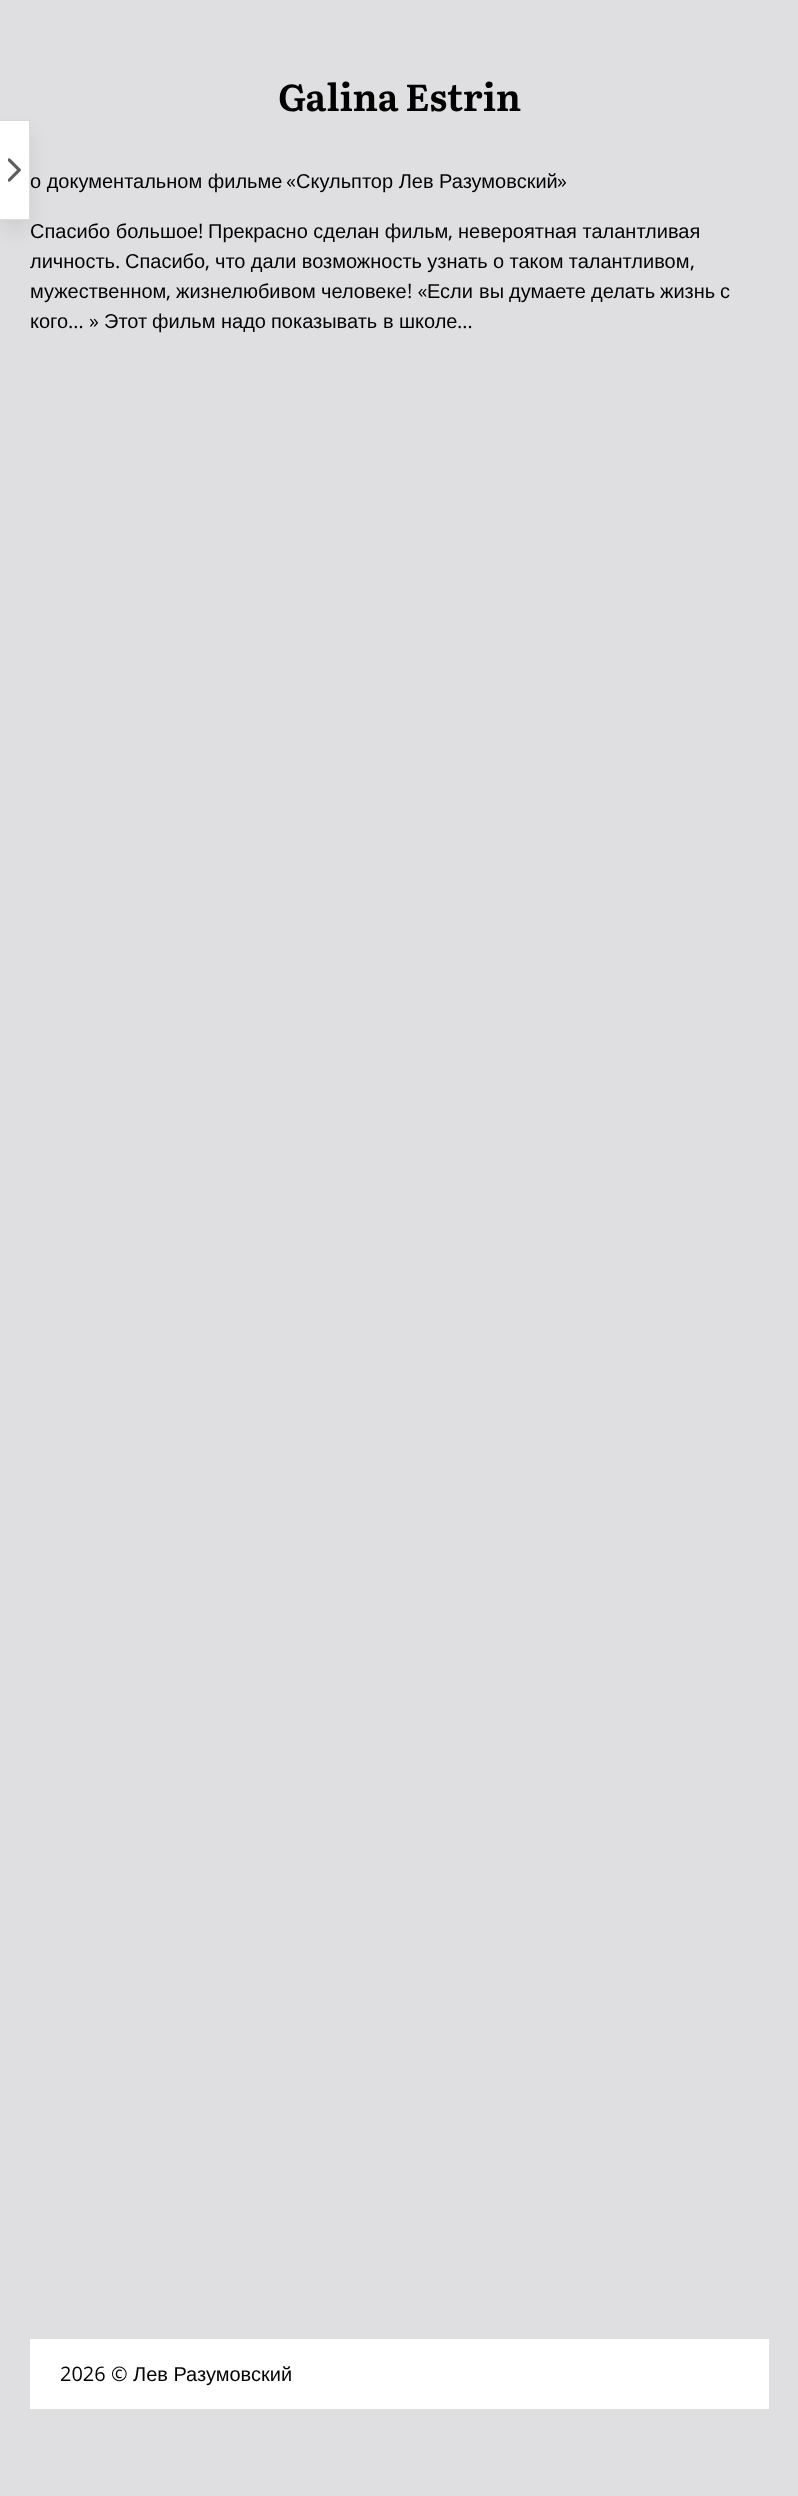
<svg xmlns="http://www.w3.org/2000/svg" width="798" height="2496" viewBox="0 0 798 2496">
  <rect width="100%" height="100%" fill="rgb(223,223,225)"/>
  <rect x="3" y="133" width="25" height="95" fill="rgba(10,10,10,0.1)" filter="blur(10px)"/>
  <rect x="0" y="121" width="29" height="98" fill="rgb(255,255,255)"/>
  <rect x="0" y="120" width="30" height="1" fill="rgb(219,219,219)"/>
  <rect x="29" y="120" width="1" height="100" fill="rgb(219,219,219)"/>
  <rect x="0" y="219" width="30" height="1" fill="rgb(219,219,219)"/>
  <image x="8" y="158" width="13" height="24" href="pic1.png"/>
  <text x="278" y="111" font-family="Literata" font-size="37.5" font-weight="bold" fill="rgb(0,0,0)">Galina Estrin</text>
  <text x="30" y="188" font-family="Liberation Sans" font-size="20" fill="rgb(0,0,0)">о документальном фильме</text>
  <text x="286" y="188" font-family="Open Sans" font-size="20" fill="rgb(0,0,0)">«</text>
  <text x="296" y="188" font-family="Liberation Sans" font-size="20" fill="rgb(0,0,0)">Скульптор Лев Разумовский</text>
  <text x="557" y="188" font-family="Open Sans" font-size="20" fill="rgb(0,0,0)">»</text>
  <text x="30" y="238" font-family="Liberation Sans" font-size="20" fill="rgb(0,0,0)">Спасибо большое</text>
  <text x="198" y="238" font-family="Open Sans" font-size="20" fill="rgb(0,0,0)">!</text>
  <text x="208" y="238" font-family="Liberation Sans" font-size="20" fill="rgb(0,0,0)">Прекрасно сделан фильм</text>
  <text x="448" y="238" font-family="Open Sans" font-size="20" fill="rgb(0,0,0)">,</text>
  <g font-family="Liberation Sans" font-size="20" fill="rgb(0,0,0)">
    <text x="458" y="238">невероятная талантливая</text>
    <text x="30" y="268">личность</text>
  </g>
  <text x="115" y="268" font-family="Open Sans" font-size="20" fill="rgb(0,0,0)">.</text>
  <text x="125" y="268" font-family="Liberation Sans" font-size="20" fill="rgb(0,0,0)">Спасибо</text>
  <text x="205" y="268" font-family="Open Sans" font-size="20" fill="rgb(0,0,0)">,</text>
  <text x="215" y="268" word-spacing="-0.25" font-family="Liberation Sans" font-size="20" fill="rgb(0,0,0)">что дали возможность узнать о таком талантливом</text>
  <text x="690" y="268" font-family="Open Sans" font-size="20" fill="rgb(0,0,0)">,</text>
  <text x="30" y="298" font-family="Liberation Sans" font-size="20" fill="rgb(0,0,0)">мужественном</text>
  <text x="166" y="298" font-family="Open Sans" font-size="20" fill="rgb(0,0,0)">,</text>
  <g font-family="Liberation Sans" font-size="20" fill="rgb(0,0,0)">
    <text x="176" y="298">жизнелюбивом</text>
    <text x="321" y="298">человеке</text>
  </g>
  <text x="407" y="298" font-family="Open Sans" font-size="20" fill="rgb(0,0,0)">! «</text>
  <g font-family="Liberation Sans" font-size="20" fill="rgb(0,0,0)">
    <text x="427" y="298">Если</text>
    <text x="479" y="298">вы</text>
    <text x="509" y="298">думаете</text>
    <text x="591" y="298">делать</text>
    <text x="660" y="298">жизнь</text>
    <text x="720" y="298">с</text>
    <text x="30" y="328">кого</text>
  </g>
  <text x="68" y="328" font-family="Open Sans" font-size="20" fill="rgb(0,0,0)">… »</text>
  <g font-family="Liberation Sans" font-size="20" fill="rgb(0,0,0)">
    <text x="104" y="328">Этот</text>
    <text x="152" y="328">фильм</text>
    <text x="221" y="328">надо</text>
    <text x="271" y="328">показывать</text>
    <text x="383" y="328">в</text>
    <text x="399" y="328">школе</text>
  </g>
  <text x="457" y="328" font-family="Open Sans" font-size="20" fill="rgb(0,0,0)">…</text>
  <rect x="30" y="2339" width="739" height="70" fill="rgb(255,255,255)"/>
  <text x="60" y="2381" font-family="Open Sans" font-size="20" fill="rgb(0,0,0)">2026 ©</text>
  <text x="133" y="2381" font-family="Liberation Sans" font-size="20" fill="rgb(0,0,0)">Лев Разумовский</text>
</svg>
